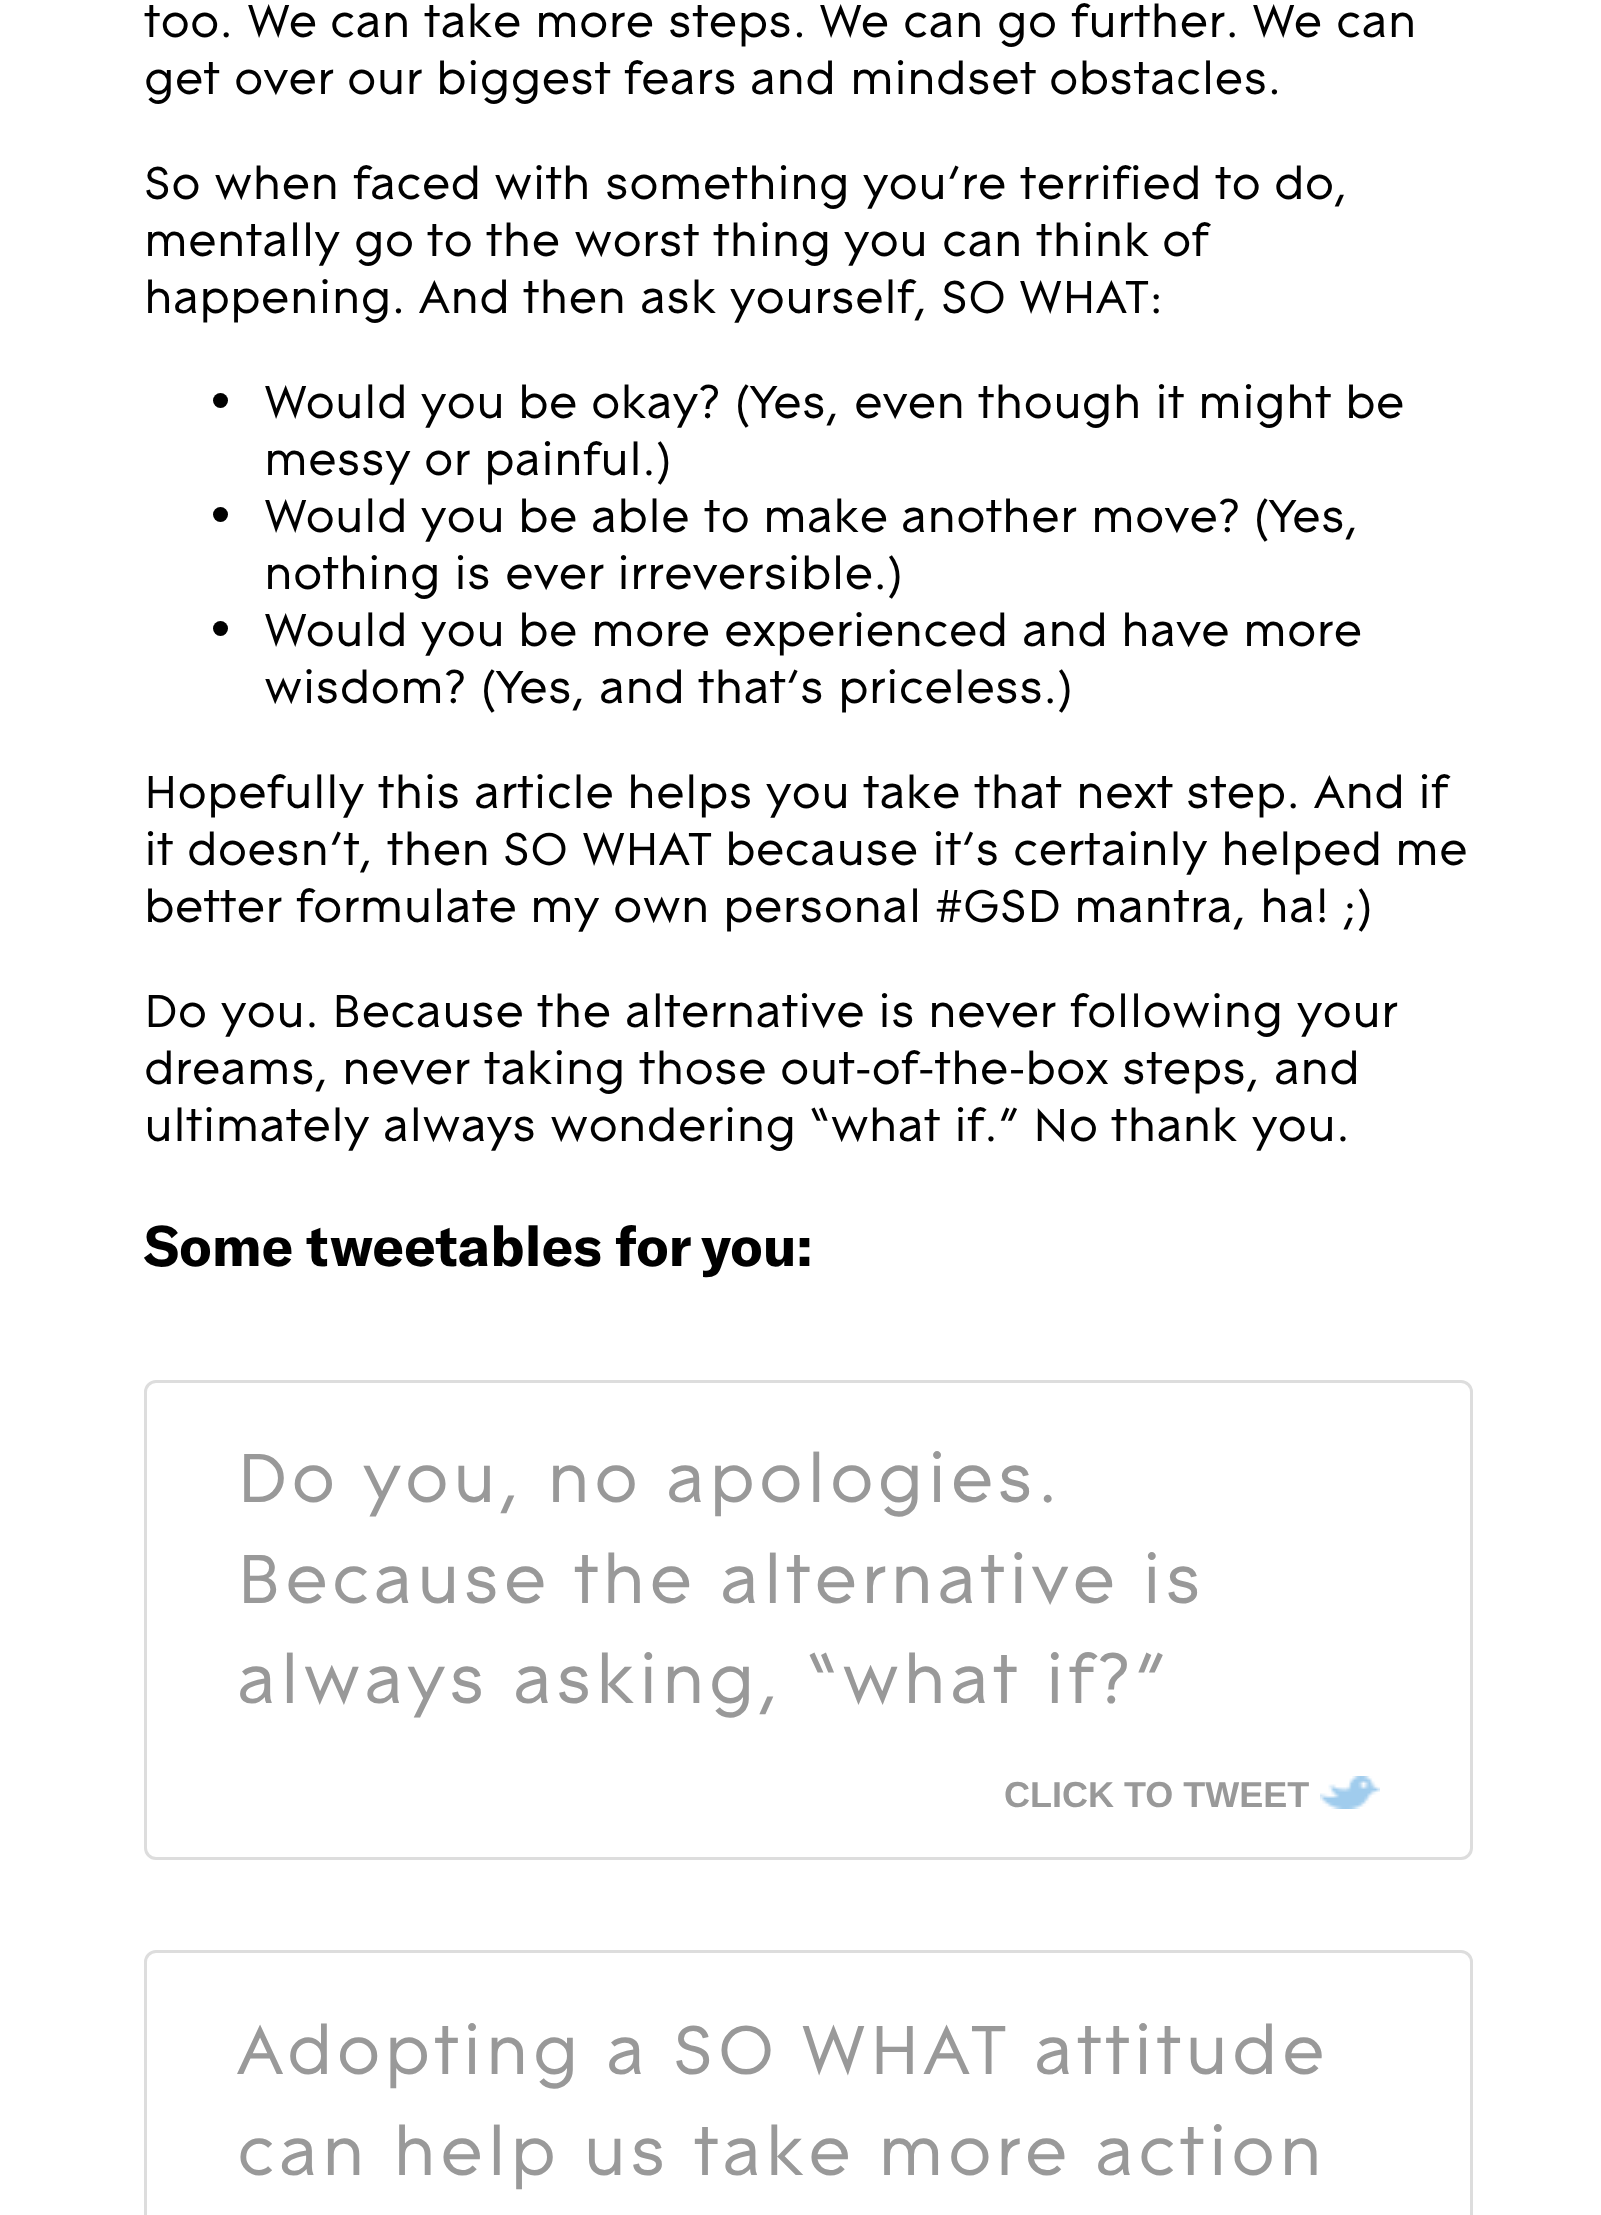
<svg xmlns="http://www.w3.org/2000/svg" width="1601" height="2215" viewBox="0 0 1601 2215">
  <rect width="100%" height="100%" fill="rgb(255,255,255)"/>
  <g font-family="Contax" font-size="48" font-weight="500" fill="rgb(0,0,0)">
    <text x="144" y="37">too.</text>
    <text x="247" y="37">We</text>
    <text x="330" y="37">can</text>
    <text x="424" y="37">take</text>
    <text x="535" y="37">more</text>
    <text x="668" y="37">steps.</text>
    <text x="819" y="37">We</text>
    <text x="903" y="37">can</text>
    <text x="997" y="37">go</text>
    <text x="1071" y="37">further.</text>
    <text x="1252" y="37">We</text>
    <text x="1336" y="37">can</text>
    <text x="144" y="94">get</text>
    <text x="234" y="94">over</text>
    <text x="347" y="94">our</text>
    <text x="436" y="94">biggest</text>
    <text x="624" y="94">fears</text>
    <text x="750" y="94">and</text>
    <text x="850" y="94">mindset</text>
    <text x="1049" y="94">obstacles.</text>
    <text x="144" y="199">So</text>
    <text x="214" y="199">when</text>
    <text x="353" y="199">faced</text>
    <text x="494" y="199">with</text>
    <text x="605" y="199">something</text>
    <text x="863" y="199">you’re</text>
    <text x="1020" y="199">terrified</text>
    <text x="1215" y="199">to</text>
    <text x="1274" y="199">do,</text>
    <text x="144" y="256">mentally</text>
    <text x="354" y="256">go</text>
    <text x="427" y="256">to</text>
    <text x="486" y="256">the</text>
    <text x="574" y="256">worst</text>
    <text x="713" y="256">thing</text>
    <text x="844" y="256">you</text>
    <text x="942" y="256">can</text>
    <text x="1036" y="256">think</text>
    <text x="1162" y="256">of</text>
    <text x="144" y="313">happening.</text>
    <text x="419" y="313">And</text>
    <text x="523" y="313">then</text>
    <text x="640" y="313">ask</text>
    <text x="730" y="313">yourself,</text>
    <text x="941" y="313">SO</text>
    <text x="1019" y="313">WHAT:</text>
  </g>
  <circle cx="220.5" cy="400.5" r="7.5" fill="rgb(0,0,0)"/>
  <g font-family="Contax" font-size="48" font-weight="500" fill="rgb(0,0,0)">
    <text x="264" y="418">Would</text>
    <text x="421" y="418">you</text>
    <text x="518" y="418">be</text>
    <text x="591" y="418">okay?</text>
    <text x="734" y="418">(Yes,</text>
    <text x="854" y="418">even</text>
    <text x="978" y="418">though</text>
    <text x="1155" y="418">it</text>
    <text x="1198" y="418">might</text>
    <text x="1345" y="418">be</text>
    <text x="264" y="475">messy</text>
    <text x="424" y="475">or</text>
    <text x="484" y="475">painful.)</text>
  </g>
  <circle cx="220.5" cy="514.5" r="7.5" fill="rgb(0,0,0)"/>
  <g font-family="Contax" font-size="48" font-weight="500" fill="rgb(0,0,0)">
    <text x="264" y="532">Would</text>
    <text x="421" y="532">you</text>
    <text x="518" y="532">be</text>
    <text x="591" y="532">able</text>
    <text x="704" y="532">to</text>
    <text x="763" y="532">make</text>
    <text x="901" y="532">another</text>
    <text x="1091" y="532">move?</text>
    <text x="1253" y="532">(Yes,</text>
    <text x="264" y="589">nothing</text>
    <text x="454" y="589">is</text>
    <text x="505" y="589">ever</text>
    <text x="617" y="589">irreversible.)</text>
  </g>
  <circle cx="220.5" cy="628.5" r="7.5" fill="rgb(0,0,0)"/>
  <g font-family="Contax" font-size="48" font-weight="500" fill="rgb(0,0,0)">
    <text x="264" y="646">Would</text>
    <text x="421" y="646">you</text>
    <text x="518" y="646">be</text>
    <text x="591" y="646">more</text>
    <text x="724" y="646">experienced</text>
    <text x="1022" y="646">and</text>
    <text x="1121" y="646">have</text>
    <text x="1243" y="646">more</text>
    <text x="264" y="703">wisdom?</text>
    <text x="480" y="703">(Yes,</text>
    <text x="599" y="703">and</text>
    <text x="698" y="703">that’s</text>
    <text x="838" y="703">priceless.)</text>
    <text x="144" y="808">Hopefully</text>
    <text x="378" y="808">this</text>
    <text x="474" y="808">article</text>
    <text x="627" y="808">helps</text>
    <text x="766" y="808">you</text>
    <text x="863" y="808">take</text>
    <text x="974" y="808">that</text>
    <text x="1076" y="808">next</text>
    <text x="1186" y="808">step.</text>
    <text x="1314" y="808">And</text>
    <text x="1418" y="808">if</text>
    <text x="144" y="865">it</text>
    <text x="187" y="865">doesn’t,</text>
    <text x="387" y="865">then</text>
    <text x="503" y="865">SO</text>
    <text x="582" y="865">WHAT</text>
    <text x="725" y="865">because</text>
    <text x="932" y="865">it’s</text>
    <text x="1013" y="865">certainly</text>
    <text x="1221" y="865">helped</text>
    <text x="1395" y="865">me</text>
    <text x="144" y="922">better</text>
    <text x="296" y="922">formulate</text>
    <text x="530" y="922">my</text>
    <text x="613" y="922">own</text>
    <text x="723" y="922">personal</text>
    <text x="935" y="922">#GSD</text>
    <text x="1074" y="922">mantra,</text>
    <text x="1260" y="922">ha!</text>
    <text x="1343" y="922">;)</text>
    <text x="144" y="1027">Do</text>
    <text x="221" y="1027">you.</text>
    <text x="332" y="1027">Because</text>
    <text x="537" y="1027">the</text>
    <text x="625" y="1027">alternative</text>
    <text x="878" y="1027">is</text>
    <text x="928" y="1027">never</text>
    <text x="1070" y="1027">following</text>
    <text x="1297" y="1027">your</text>
    <text x="144" y="1084">dreams,</text>
    <text x="342" y="1084">never</text>
    <text x="484" y="1084">taking</text>
    <text x="639" y="1084">those</text>
    <text x="780" y="1084">out-of-the-box</text>
    <text x="1122" y="1084">steps,</text>
    <text x="1274" y="1084">and</text>
    <text x="144" y="1141">ultimately</text>
    <text x="383" y="1141">always</text>
    <text x="550" y="1141">wondering</text>
    <text x="809" y="1141">“what</text>
    <text x="954" y="1141">if.”</text>
    <text x="1033" y="1141">No</text>
    <text x="1111" y="1141">thank</text>
    <text x="1252" y="1141">you.</text>
  </g>
  <text x="144" y="1266" font-family="GT America" font-size="56.2" font-weight="bold" fill="rgb(0,0,0)">Some tweetables for you:</text>
  <rect x="145.5" y="1381.5" width="1326" height="477" rx="10.5" fill="none" stroke="rgb(221,221,221)" stroke-width="3"/>
  <g font-family="Contax" font-size="72" font-weight="500" letter-spacing="3.6" fill="rgb(153,153,153)">
    <text x="237" y="1502">Do</text>
    <text x="363" y="1502">you,</text>
    <text x="547" y="1502">no</text>
    <text x="666" y="1502">apologies.</text>
    <text x="237" y="1603">Because</text>
    <text x="574" y="1603">the</text>
    <text x="720" y="1603">alternative</text>
    <text x="1142" y="1603">is</text>
    <text x="237" y="1703">always</text>
    <text x="513" y="1703">asking,</text>
    <text x="806" y="1703">“what</text>
    <text x="1045" y="1703">if?”</text>
  </g>
  <image x="1320" y="1776" width="60" height="33" href="pic1.png"/>
  <text x="1004" y="1807" font-family="Liberation Sans" font-size="36" font-weight="bold" fill="rgb(153,153,153)">CLICK TO TWEET</text>
  <rect x="145.5" y="1951.5" width="1326" height="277" rx="10.5" fill="none" stroke="rgb(221,221,221)" stroke-width="3"/>
  <g font-family="Contax" font-size="72" font-weight="500" letter-spacing="3.6" fill="rgb(153,153,153)">
    <text x="237" y="2074">Adopting</text>
    <text x="606" y="2074">a</text>
    <text x="673" y="2074">SO</text>
    <text x="801" y="2074">WHAT</text>
    <text x="1034" y="2074">attitude</text>
    <text x="237" y="2175">can</text>
    <text x="393" y="2175">help</text>
    <text x="583" y="2175">us</text>
    <text x="694" y="2175">take</text>
    <text x="878" y="2175">more</text>
    <text x="1095" y="2175">action</text>
  </g>
</svg>
